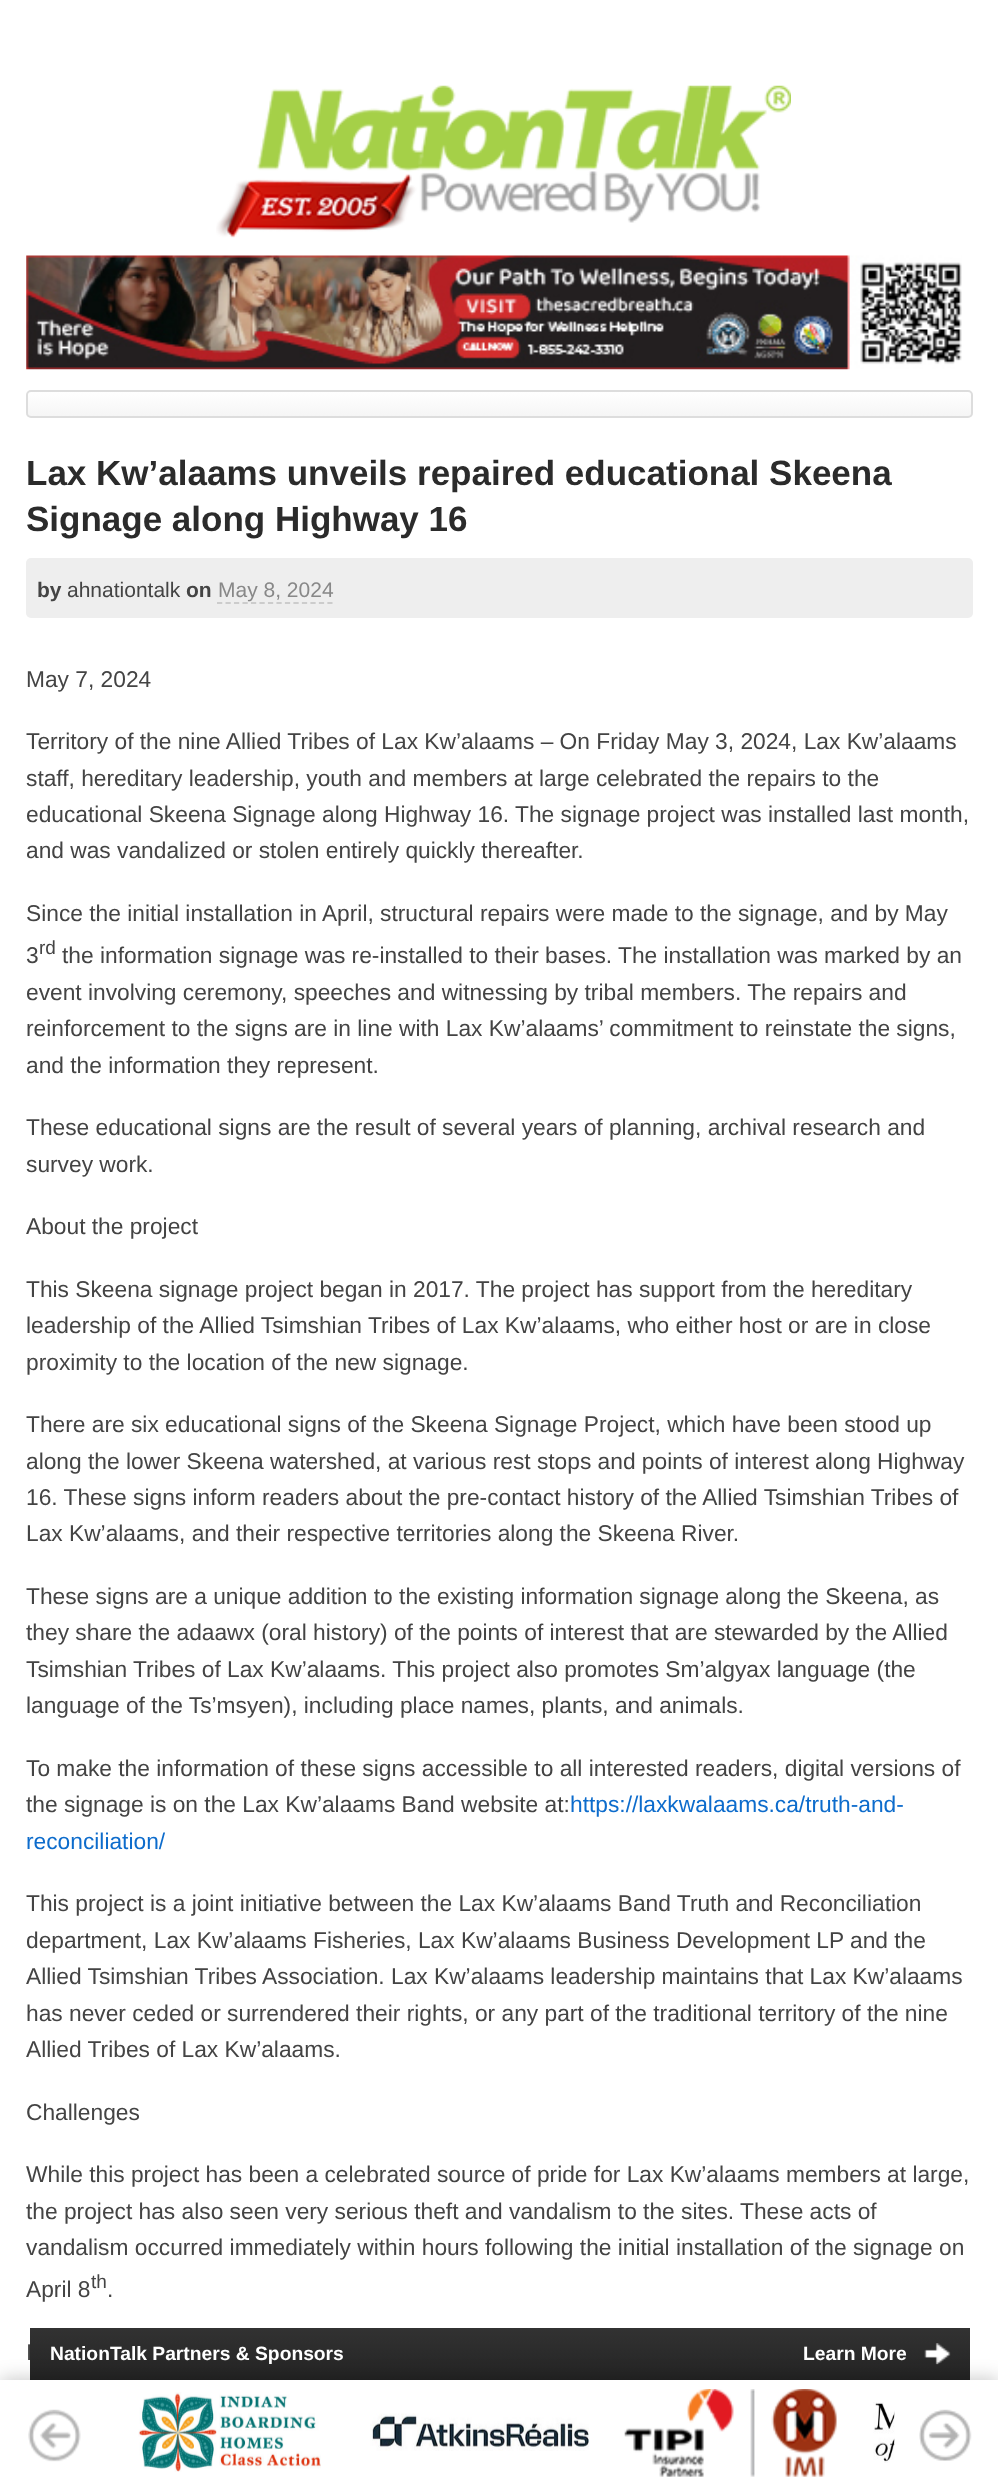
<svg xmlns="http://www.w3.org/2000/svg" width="998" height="2484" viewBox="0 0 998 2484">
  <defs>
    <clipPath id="clip1"><rect x="26" y="390" width="947" height="28" rx="5"/></clipPath>
    <linearGradient id="g1" gradientUnits="userSpaceOnUse" x1="500" y1="392" x2="500" y2="417"><stop offset="0" stop-color="rgb(255,255,255)"/><stop offset="1" stop-color="rgb(245,245,245)"/></linearGradient>
    <linearGradient id="g2" gradientUnits="userSpaceOnUse" x1="500" y1="2328" x2="500" y2="2380"><stop offset="0" stop-color="rgb(50,50,50)"/><stop offset="1" stop-color="rgb(36,36,36)"/></linearGradient>
  </defs>
  <rect width="100%" height="100%" fill="rgb(255,255,255)"/>
  <image x="216" y="85" width="575" height="153" href="pic1.png"/>
  <image x="26" y="255" width="936" height="115" href="pic2.png"/>
  <g clip-path="url(#clip1)">
    <rect x="26" y="392" width="947" height="25" fill="url(#g1)"/>
  </g>
  <rect x="27" y="391" width="945" height="26" rx="4" fill="none" stroke="rgb(221,221,221)" stroke-width="2"/>
  <g font-family="Liberation Sans" font-size="35" font-weight="bold" fill="rgb(43,43,43)">
    <text>
      <tspan x="26" y="485">Lax Kw’alaams unveils repaired educational Skeena</tspan>
      <tspan x="26" y="531">Signage along Highway 16</tspan>
    </text>
  </g>
  <rect x="26" y="558" width="947" height="60" rx="5" fill="rgb(238,238,238)"/>
  <text x="37" y="597" font-family="Liberation Sans" font-size="21" font-weight="bold" fill="rgb(68,68,68)">by</text>
  <text x="67" y="597" font-family="Liberation Sans" font-size="21" fill="rgb(68,68,68)">ahnationtalk</text>
  <text x="186" y="597" font-family="Liberation Sans" font-size="21" font-weight="bold" fill="rgb(68,68,68)">on</text>
  <text x="218" y="597" font-family="Liberation Sans" font-size="21" fill="rgb(136,136,136)">May 8, 2024</text>
  <path d="M217 603H332.5" fill="none" stroke="rgb(204,204,204)" stroke-width="1.8" stroke-dasharray="5.25 3.24"/>
  <g font-family="Liberation Sans" font-size="22.75" fill="rgb(68,68,68)">
    <text x="26" y="687">May 7, 2024</text>
    <text>
      <tspan x="26" y="749">Territory of the nine Allied Tribes of Lax Kw’alaams – On Friday May 3, 2024, Lax Kw’alaams</tspan>
      <tspan x="26" y="786">staff, hereditary leadership, youth and members at large celebrated the repairs to the</tspan>
      <tspan x="26" y="822">educational Skeena Signage along Highway 16. The signage project was installed last month,</tspan>
      <tspan x="26" y="858">and was vandalized or stolen entirely quickly thereafter.</tspan>
    </text>
    <text>
      <tspan x="26" y="921">Since the initial installation in April, structural repairs were made to the signage, and by May</tspan>
      <tspan x="26" y="963">3</tspan>
    </text>
  </g>
  <text x="39" y="954" font-family="Liberation Sans" font-size="19" fill="rgb(68,68,68)">rd</text>
  <g font-family="Liberation Sans" font-size="22.75" fill="rgb(68,68,68)">
    <text x="62" y="963">the information signage was re-installed to their bases. The installation was marked by an</text>
    <text>
      <tspan x="26" y="1000">event involving ceremony, speeches and witnessing by tribal members. The repairs and</tspan>
      <tspan x="26" y="1036">reinforcement to the signs are in line with Lax Kw’alaams’ commitment to reinstate the signs,</tspan>
      <tspan x="26" y="1073">and the information they represent.</tspan>
    </text>
    <text>
      <tspan x="26" y="1135">These educational signs are the result of several years of planning, archival research and</tspan>
      <tspan x="26" y="1172">survey work.</tspan>
    </text>
    <text x="26" y="1234">About the project</text>
    <text>
      <tspan x="26" y="1297">This Skeena signage project began in 2017. The project has support from the hereditary</tspan>
      <tspan x="26" y="1333">leadership of the Allied Tsimshian Tribes of Lax Kw’alaams, who either host or are in close</tspan>
      <tspan x="26" y="1370">proximity to the location of the new signage.</tspan>
    </text>
    <text>
      <tspan x="26" y="1432">There are six educational signs of the Skeena Signage Project, which have been stood up</tspan>
      <tspan x="26" y="1469">along the lower Skeena watershed, at various rest stops and points of interest along Highway</tspan>
      <tspan x="26" y="1505">16. These signs inform readers about the pre-contact history of the Allied Tsimshian Tribes of</tspan>
      <tspan x="26" y="1541">Lax Kw’alaams, and their respective territories along the Skeena River.</tspan>
    </text>
    <text>
      <tspan x="26" y="1604">These signs are a unique addition to the existing information signage along the Skeena, as</tspan>
      <tspan x="26" y="1640">they share the adaawx (oral history) of the points of interest that are stewarded by the Allied</tspan>
      <tspan x="26" y="1677">Tsimshian Tribes of Lax Kw’alaams. This project also promotes Sm’algyax language (the</tspan>
      <tspan x="26" y="1713">language of the Ts’msyen), including place names, plants, and animals.</tspan>
    </text>
    <text>
      <tspan x="26" y="1776">To make the information of these signs accessible to all interested readers, digital versions of</tspan>
      <tspan x="26" y="1812">the signage is on the Lax Kw’alaams Band website at:</tspan>
    </text>
  </g>
  <g font-family="Liberation Sans" font-size="22.75" fill="rgb(13,108,204)">
    <text x="570" y="1812">https://laxkwalaams.ca/truth-and-</text>
    <text x="26" y="1849">reconciliation/</text>
  </g>
  <g font-family="Liberation Sans" font-size="22.75" fill="rgb(68,68,68)">
    <text>
      <tspan x="26" y="1911">This project is a joint initiative between the Lax Kw’alaams Band Truth and Reconciliation</tspan>
      <tspan x="26" y="1948">department, Lax Kw’alaams Fisheries, Lax Kw’alaams Business Development LP and the</tspan>
      <tspan x="26" y="1984">Allied Tsimshian Tribes Association. Lax Kw’alaams leadership maintains that Lax Kw’alaams</tspan>
      <tspan x="26" y="2021">has never ceded or surrendered their rights, or any part of the traditional territory of the nine</tspan>
      <tspan x="26" y="2057">Allied Tribes of Lax Kw’alaams.</tspan>
    </text>
    <text x="26" y="2120">Challenges</text>
    <text>
      <tspan x="26" y="2182">While this project has been a celebrated source of pride for Lax Kw’alaams members at large,</tspan>
      <tspan x="26" y="2219">the project has also seen very serious theft and vandalism to the sites. These acts of</tspan>
      <tspan x="26" y="2255">vandalism occurred immediately within hours following the initial installation of the signage on</tspan>
      <tspan x="26" y="2297">April 8</tspan>
    </text>
  </g>
  <text x="91" y="2288" font-family="Liberation Sans" font-size="19" fill="rgb(68,68,68)">th</text>
  <g font-family="Liberation Sans" font-size="22.75" fill="rgb(68,68,68)">
    <text x="107" y="2297">.</text>
    <text x="26" y="2360">I</text>
  </g>
  <rect x="30" y="2328" width="940" height="52" fill="url(#g2)"/>
  <g font-family="Liberation Sans" font-size="19.25" font-weight="bold" fill="rgb(255,255,255)">
    <text x="50" y="2360">NationTalk Partners &amp; Sponsors</text>
    <text x="803" y="2360">Learn More</text>
  </g>
  <image x="924" y="2343" width="27" height="22" href="pic3.png"/>
  <rect x="0" y="2378" width="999" height="105" fill="rgba(0,0,0,0.2)" filter="blur(9px)"/>
  <rect x="0" y="2380" width="998" height="104" fill="rgb(255,255,255)"/>
  <image x="28" y="2409" width="53" height="53" href="pic4.png"/>
  <image x="138" y="2392" width="183" height="80" href="pic5.png"/>
  <image x="370" y="2413" width="219" height="38" href="pic6.png"/>
  <image x="624" y="2389" width="213" height="88" href="pic7.png"/>
  <image x="873" y="2402" width="22" height="61" href="pic8.png"/>
  <image x="919" y="2409" width="53" height="52" href="pic9.png"/>
</svg>
